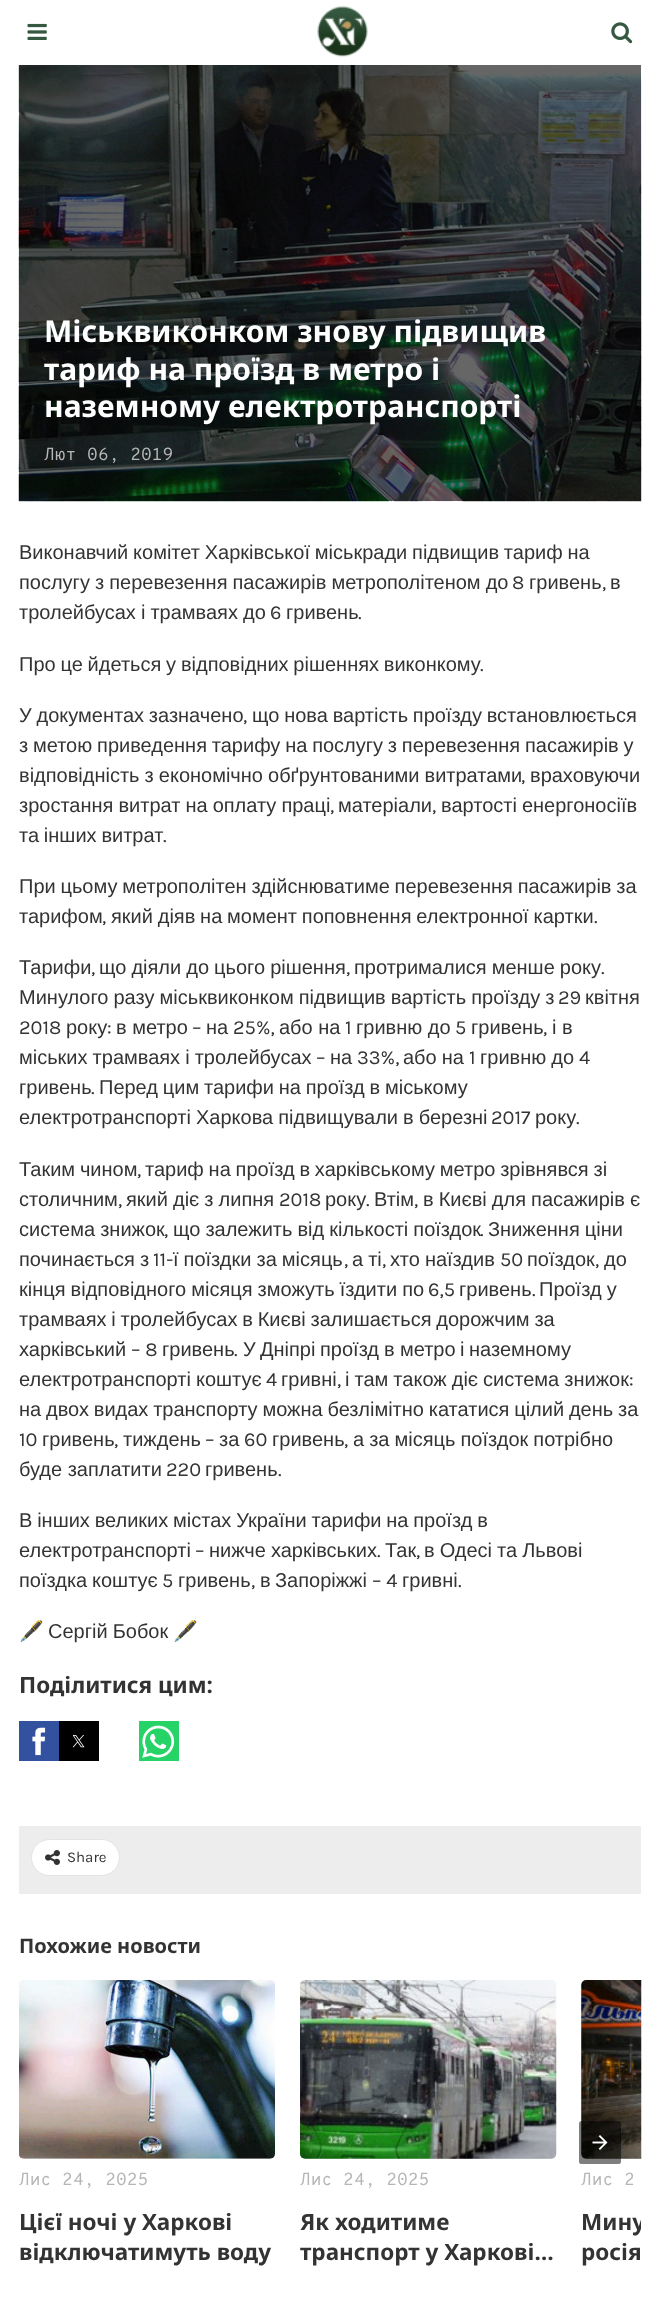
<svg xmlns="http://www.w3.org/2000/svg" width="659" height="2297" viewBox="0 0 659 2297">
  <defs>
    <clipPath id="clip1"><rect x="581" y="2206" width="60" height="60"/></clipPath>
  </defs>
  <rect width="100%" height="100%" fill="rgb(255,255,255)"/>
  <image x="27" y="23" width="20" height="17" href="pic1.png"/>
  <image x="317" y="6" width="51" height="51" href="pic2.png"/>
  <image x="611" y="22" width="22" height="22" href="pic3.png"/>
  <image x="18" y="65" width="624" height="437" href="pic4.png"/>
  <g font-family="Noto Sans" font-size="30" font-weight="bold" fill="rgb(255,255,255)">
    <text>
      <tspan x="44" y="342">Міськвиконком знову підвищив</tspan>
      <tspan x="44" y="380">тариф на проїзд в метро і</tspan>
      <tspan x="44" y="417">наземному електротранспорті</tspan>
    </text>
  </g>
  <text x="44" y="460" font-family="Overpass Mono" font-size="17.5" font-weight="300" fill="rgb(182,182,182)">Лют 06, 2019</text>
  <g font-family="Liberation Sans" font-size="20" fill="rgb(51,51,51)">
    <text>
      <tspan x="19" y="559" word-spacing="-0.75">Виконавчий комітет Харківської міськради підвищив тариф на</tspan>
      <tspan x="19" y="589" word-spacing="-0.5">послугу з перевезення пасажирів метрополітеном до</tspan>
    </text>
  </g>
  <text x="512" y="589" font-family="Karla" font-size="20" fill="rgb(51,51,51)">8</text>
  <g font-family="Liberation Sans" font-size="20" fill="rgb(51,51,51)">
    <text x="529" y="589">гривень</text>
    <text x="610" y="589">в</text>
  </g>
  <text x="602" y="589" font-family="Karla" font-size="20" fill="rgb(51,51,51)">,</text>
  <text x="19" y="619" word-spacing="-0.5" font-family="Liberation Sans" font-size="20" fill="rgb(51,51,51)">тролейбусах і трамваях до</text>
  <text x="270" y="619" font-family="Karla" font-size="20" fill="rgb(51,51,51)">6</text>
  <text x="286" y="619" font-family="Liberation Sans" font-size="20" fill="rgb(51,51,51)">гривень</text>
  <text x="358" y="619" font-family="Karla" font-size="20" fill="rgb(51,51,51)">.</text>
  <text x="19" y="671" word-spacing="-0.75" font-family="Liberation Sans" font-size="20" fill="rgb(51,51,51)">Про це йдеться у відповідних рішеннях виконкому</text>
  <text x="480" y="671" font-family="Karla" font-size="20" fill="rgb(51,51,51)">.</text>
  <text x="19" y="722" word-spacing="-0.75" font-family="Liberation Sans" font-size="20" fill="rgb(51,51,51)">У документах зазначено</text>
  <text x="243" y="722" font-family="Karla" font-size="20" fill="rgb(51,51,51)">,</text>
  <g font-family="Liberation Sans" font-size="20" fill="rgb(51,51,51)">
    <text x="252" y="722" word-spacing="-0.75">що нова вартість проїзду встановлюється</text>
    <text>
      <tspan x="19" y="752" word-spacing="-0.75">з метою приведення тарифу на послугу з перевезення пасажирів у</tspan>
      <tspan x="19" y="782" word-spacing="-0.5">відповідність з економічно обґрунтованими витратами</tspan>
    </text>
  </g>
  <text x="521" y="782" font-family="Karla" font-size="20" fill="rgb(51,51,51)">,</text>
  <g font-family="Liberation Sans" font-size="20" fill="rgb(51,51,51)">
    <text x="530" y="782">враховуючи</text>
    <text x="19" y="812" word-spacing="-0.5">зростання витрат на оплату праці</text>
  </g>
  <text x="330" y="812" font-family="Karla" font-size="20" fill="rgb(51,51,51)">,</text>
  <text x="338" y="812" font-family="Liberation Sans" font-size="20" fill="rgb(51,51,51)">матеріали</text>
  <text x="432" y="812" font-family="Karla" font-size="20" fill="rgb(51,51,51)">,</text>
  <g font-family="Liberation Sans" font-size="20" fill="rgb(51,51,51)">
    <text x="441" y="812" word-spacing="-0.5">вартості енергоносіїв</text>
    <text x="19" y="842" word-spacing="-0.75">та інших витрат</text>
  </g>
  <text x="163" y="842" font-family="Karla" font-size="20" fill="rgb(51,51,51)">.</text>
  <g font-family="Liberation Sans" font-size="20" fill="rgb(51,51,51)">
    <text>
      <tspan x="19" y="893" word-spacing="-0.75">При цьому метрополітен здійснюватиме перевезення пасажирів за</tspan>
      <tspan x="19" y="923">тарифом</tspan>
    </text>
  </g>
  <text x="102" y="923" font-family="Karla" font-size="20" fill="rgb(51,51,51)">,</text>
  <text x="111" y="923" word-spacing="-0.75" font-family="Liberation Sans" font-size="20" fill="rgb(51,51,51)">який діяв на момент поповнення електронної картки</text>
  <text x="594" y="923" font-family="Karla" font-size="20" fill="rgb(51,51,51)">.</text>
  <text x="19" y="974" font-family="Liberation Sans" font-size="20" fill="rgb(51,51,51)">Тарифи</text>
  <text x="91" y="974" font-family="Karla" font-size="20" fill="rgb(51,51,51)">,</text>
  <text x="99" y="974" word-spacing="-0.5" font-family="Liberation Sans" font-size="20" fill="rgb(51,51,51)">що діяли до цього рішення</text>
  <text x="346" y="974" font-family="Karla" font-size="20" fill="rgb(51,51,51)">,</text>
  <text x="354" y="974" word-spacing="-0.5" font-family="Liberation Sans" font-size="20" fill="rgb(51,51,51)">протрималися менше року</text>
  <text x="601" y="974" font-family="Karla" font-size="20" fill="rgb(51,51,51)">.</text>
  <text x="19" y="1004" word-spacing="-0.5" font-family="Liberation Sans" font-size="20" fill="rgb(51,51,51)">Минулого разу міськвиконком підвищив вартість проїзду з</text>
  <text x="558" y="1004" font-family="Karla" font-size="20" fill="rgb(51,51,51)">29</text>
  <text x="585" y="1004" font-family="Liberation Sans" font-size="20" fill="rgb(51,51,51)">квітня</text>
  <text x="19" y="1034" font-family="Karla" font-size="20" fill="rgb(51,51,51)">2018</text>
  <text x="66" y="1034" font-family="Liberation Sans" font-size="20" fill="rgb(51,51,51)">року</text>
  <text x="107" y="1034" font-family="Karla" font-size="20" fill="rgb(51,51,51)">:</text>
  <text x="116" y="1034" font-family="Liberation Sans" font-size="20" fill="rgb(51,51,51)">в метро</text>
  <text x="192" y="1034" font-family="Karla" font-size="20" fill="rgb(51,51,51)">–</text>
  <text x="206" y="1034" font-family="Liberation Sans" font-size="20" fill="rgb(51,51,51)">на</text>
  <text x="233" y="1034" font-family="Karla" font-size="20" fill="rgb(51,51,51)">25%,</text>
  <text x="279" y="1034" font-family="Liberation Sans" font-size="20" fill="rgb(51,51,51)">або на</text>
  <text x="345" y="1034" font-family="Karla" font-size="20" fill="rgb(51,51,51)">1</text>
  <text x="356" y="1034" font-family="Liberation Sans" font-size="20" fill="rgb(51,51,51)">гривню до</text>
  <text x="455" y="1034" font-family="Karla" font-size="20" fill="rgb(51,51,51)">5</text>
  <g font-family="Liberation Sans" font-size="20" fill="rgb(51,51,51)">
    <text x="471" y="1034">гривень</text>
    <text x="552" y="1034">і в</text>
  </g>
  <text x="543" y="1034" font-family="Karla" font-size="20" fill="rgb(51,51,51)">,</text>
  <text x="19" y="1064" word-spacing="-0.5" font-family="Liberation Sans" font-size="20" fill="rgb(51,51,51)">міських трамваях і тролейбусах</text>
  <text x="316" y="1064" font-family="Karla" font-size="20" fill="rgb(51,51,51)">–</text>
  <text x="330" y="1064" font-family="Liberation Sans" font-size="20" fill="rgb(51,51,51)">на</text>
  <text x="357" y="1064" font-family="Karla" font-size="20" fill="rgb(51,51,51)">33%,</text>
  <text x="403" y="1064" word-spacing="-0.5" font-family="Liberation Sans" font-size="20" fill="rgb(51,51,51)">або на</text>
  <text x="469" y="1064" font-family="Karla" font-size="20" fill="rgb(51,51,51)">1</text>
  <text x="480" y="1064" word-spacing="-0.5" font-family="Liberation Sans" font-size="20" fill="rgb(51,51,51)">гривню до</text>
  <text x="579" y="1064" font-family="Karla" font-size="20" fill="rgb(51,51,51)">4</text>
  <text x="19" y="1094" font-family="Liberation Sans" font-size="20" fill="rgb(51,51,51)">гривень</text>
  <text x="91" y="1094" font-family="Karla" font-size="20" fill="rgb(51,51,51)">.</text>
  <g font-family="Liberation Sans" font-size="20" fill="rgb(51,51,51)">
    <text x="99" y="1094" word-spacing="-0.75">Перед цим тарифи на проїзд в міському</text>
    <text x="19" y="1124" word-spacing="-0.5">електротранспорті Харкова підвищували в березні</text>
  </g>
  <text x="491" y="1124" font-family="Karla" font-size="20" fill="rgb(51,51,51)">2017</text>
  <text x="535" y="1124" font-family="Liberation Sans" font-size="20" fill="rgb(51,51,51)">року</text>
  <text x="576" y="1124" font-family="Karla" font-size="20" fill="rgb(51,51,51)">.</text>
  <text x="19" y="1176" word-spacing="-0.75" font-family="Liberation Sans" font-size="20" fill="rgb(51,51,51)">Таким чином</text>
  <text x="137" y="1176" font-family="Karla" font-size="20" fill="rgb(51,51,51)">,</text>
  <g font-family="Liberation Sans" font-size="20" fill="rgb(51,51,51)">
    <text x="145" y="1176" word-spacing="-0.75">тариф на проїзд в харківському метро зрівнявся зі</text>
    <text x="19" y="1206">столичним</text>
  </g>
  <text x="118" y="1206" font-family="Karla" font-size="20" fill="rgb(51,51,51)">,</text>
  <text x="126" y="1206" word-spacing="-0.5" font-family="Liberation Sans" font-size="20" fill="rgb(51,51,51)">який діє з липня</text>
  <text x="279" y="1206" font-family="Karla" font-size="20" fill="rgb(51,51,51)">2018</text>
  <text x="325" y="1206" font-family="Liberation Sans" font-size="20" fill="rgb(51,51,51)">року</text>
  <text x="366" y="1206" font-family="Karla" font-size="20" fill="rgb(51,51,51)">.</text>
  <text x="374" y="1206" font-family="Liberation Sans" font-size="20" fill="rgb(51,51,51)">Втім</text>
  <text x="414" y="1206" font-family="Karla" font-size="20" fill="rgb(51,51,51)">,</text>
  <g font-family="Liberation Sans" font-size="20" fill="rgb(51,51,51)">
    <text x="423" y="1206" word-spacing="-0.5">в Києві для пасажирів є</text>
    <text x="19" y="1236" word-spacing="-0.5">система знижок</text>
  </g>
  <text x="164" y="1236" font-family="Karla" font-size="20" fill="rgb(51,51,51)">,</text>
  <text x="173" y="1236" word-spacing="-0.5" font-family="Liberation Sans" font-size="20" fill="rgb(51,51,51)">що залежить від кількості поїздок</text>
  <text x="480" y="1236" font-family="Karla" font-size="20" fill="rgb(51,51,51)">.</text>
  <g font-family="Liberation Sans" font-size="20" fill="rgb(51,51,51)">
    <text x="488" y="1236" word-spacing="-0.5">Зниження ціни</text>
    <text x="19" y="1266" word-spacing="-0.5">починається з</text>
  </g>
  <text x="153" y="1266" font-family="Karla" font-size="20" fill="rgb(51,51,51)">11-</text>
  <text x="173" y="1266" word-spacing="-0.5" font-family="Liberation Sans" font-size="20" fill="rgb(51,51,51)">ї поїздки за місяць</text>
  <text x="344" y="1266" font-family="Karla" font-size="20" fill="rgb(51,51,51)">,</text>
  <text x="352" y="1266" word-spacing="-0.5" font-family="Liberation Sans" font-size="20" fill="rgb(51,51,51)">а ті</text>
  <text x="382" y="1266" font-family="Karla" font-size="20" fill="rgb(51,51,51)">,</text>
  <text x="390" y="1266" word-spacing="-0.5" font-family="Liberation Sans" font-size="20" fill="rgb(51,51,51)">хто наїздив</text>
  <text x="500" y="1266" font-family="Karla" font-size="20" fill="rgb(51,51,51)">50</text>
  <text x="527" y="1266" font-family="Liberation Sans" font-size="20" fill="rgb(51,51,51)">поїздок</text>
  <text x="595" y="1266" font-family="Karla" font-size="20" fill="rgb(51,51,51)">,</text>
  <g font-family="Liberation Sans" font-size="20" fill="rgb(51,51,51)">
    <text x="604" y="1266">до</text>
    <text x="19" y="1296" word-spacing="-0.5">кінця відповідного місяця зможуть їздити по</text>
  </g>
  <text x="428" y="1296" font-family="Karla" font-size="20" fill="rgb(51,51,51)">6,5</text>
  <text x="459" y="1296" font-family="Liberation Sans" font-size="20" fill="rgb(51,51,51)">гривень</text>
  <text x="532" y="1296" font-family="Karla" font-size="20" fill="rgb(51,51,51)">.</text>
  <g font-family="Liberation Sans" font-size="20" fill="rgb(51,51,51)">
    <text x="539" y="1296" word-spacing="-0.5">Проїзд у</text>
    <text>
      <tspan x="19" y="1326" word-spacing="-0.75">трамваях і тролейбусах в Києві залишається дорожчим за</tspan>
      <tspan x="19" y="1356">харківський</tspan>
    </text>
  </g>
  <text x="131" y="1356" font-family="Karla" font-size="20" fill="rgb(51,51,51)">– 8</text>
  <text x="162" y="1356" font-family="Liberation Sans" font-size="20" fill="rgb(51,51,51)">гривень</text>
  <text x="234" y="1356" font-family="Karla" font-size="20" fill="rgb(51,51,51)">.</text>
  <g font-family="Liberation Sans" font-size="20" fill="rgb(51,51,51)">
    <text x="243" y="1356">У</text>
    <text x="260" y="1356">Дніпрі</text>
    <text x="320" y="1356">проїзд</text>
    <text x="384" y="1356">в</text>
    <text x="400" y="1356">метро</text>
    <text x="460" y="1356">і</text>
    <text x="469" y="1356">наземному</text>
    <text x="19" y="1386" word-spacing="-0.5">електротранспорті коштує</text>
  </g>
  <text x="266" y="1386" font-family="Karla" font-size="20" fill="rgb(51,51,51)">4</text>
  <g font-family="Liberation Sans" font-size="20" fill="rgb(51,51,51)">
    <text x="281" y="1386">гривні</text>
    <text x="345" y="1386" word-spacing="-0.5">і там також діє система знижок</text>
  </g>
  <g font-family="Karla" font-size="20" fill="rgb(51,51,51)">
    <text x="629" y="1386">:</text>
    <text x="337" y="1386">,</text>
  </g>
  <text x="19" y="1416" word-spacing="-0.75" font-family="Liberation Sans" font-size="20" fill="rgb(51,51,51)">на двох видах транспорту можна безлімітно кататися цілий день за</text>
  <text x="19" y="1446" font-family="Karla" font-size="20" fill="rgb(51,51,51)">10</text>
  <g font-family="Liberation Sans" font-size="20" fill="rgb(51,51,51)">
    <text x="42" y="1446">гривень</text>
    <text x="123" y="1446">тиждень</text>
  </g>
  <text x="205" y="1446" font-family="Karla" font-size="20" fill="rgb(51,51,51)">–</text>
  <text x="219" y="1446" font-family="Liberation Sans" font-size="20" fill="rgb(51,51,51)">за</text>
  <text x="244" y="1446" font-family="Karla" font-size="20" fill="rgb(51,51,51)">60</text>
  <g font-family="Liberation Sans" font-size="20" fill="rgb(51,51,51)">
    <text x="272" y="1446">гривень</text>
    <text x="353" y="1446" word-spacing="-0.5">а за місяць поїздок потрібно</text>
  </g>
  <g font-family="Karla" font-size="20" fill="rgb(51,51,51)">
    <text x="114" y="1446">,</text>
    <text x="344" y="1446">,</text>
  </g>
  <text x="19" y="1476" font-family="Liberation Sans" font-size="20" fill="rgb(51,51,51)">буде заплатити</text>
  <text x="166" y="1476" font-family="Karla" font-size="20" fill="rgb(51,51,51)">220</text>
  <text x="205" y="1476" font-family="Liberation Sans" font-size="20" fill="rgb(51,51,51)">гривень</text>
  <text x="278" y="1476" font-family="Karla" font-size="20" fill="rgb(51,51,51)">.</text>
  <g font-family="Liberation Sans" font-size="20" fill="rgb(51,51,51)">
    <text>
      <tspan x="19" y="1527" word-spacing="-0.75">В інших великих містах України тарифи на проїзд в</tspan>
      <tspan x="19" y="1557">електротранспорті</tspan>
    </text>
  </g>
  <text x="195" y="1557" font-family="Karla" font-size="20" fill="rgb(51,51,51)">–</text>
  <g font-family="Liberation Sans" font-size="20" fill="rgb(51,51,51)">
    <text x="209" y="1557" word-spacing="-0.5">нижче харківських</text>
    <text x="385" y="1557">Так</text>
    <text x="424" y="1557" word-spacing="-0.5">в Одесі та Львові</text>
  </g>
  <g font-family="Karla" font-size="20" fill="rgb(51,51,51)">
    <text x="377" y="1557">.</text>
    <text x="416" y="1557">,</text>
  </g>
  <g font-family="Liberation Sans" font-size="20" fill="rgb(51,51,51)">
    <text x="19" y="1587">поїздка</text>
    <text x="92" y="1587">коштує</text>
  </g>
  <text x="162" y="1587" font-family="Karla" font-size="20" fill="rgb(51,51,51)">5</text>
  <text x="178" y="1587" font-family="Liberation Sans" font-size="20" fill="rgb(51,51,51)">гривень</text>
  <text x="251" y="1587" font-family="Karla" font-size="20" fill="rgb(51,51,51)">,</text>
  <g font-family="Liberation Sans" font-size="20" fill="rgb(51,51,51)">
    <text x="260" y="1587">в</text>
    <text x="275" y="1587">Запоріжжі</text>
  </g>
  <text x="372" y="1587" font-family="Karla" font-size="20" fill="rgb(51,51,51)">– 4</text>
  <text x="402" y="1587" font-family="Liberation Sans" font-size="20" fill="rgb(51,51,51)">гривні</text>
  <text x="458" y="1587" font-family="Karla" font-size="20" fill="rgb(51,51,51)">.</text>
  <text x="19" y="1638" font-family="Noto Color Emoji" font-size="20" fill="rgb(51,51,51)">🖋️</text>
  <text x="48" y="1638" word-spacing="-0.5" font-family="Liberation Sans" font-size="20" fill="rgb(51,51,51)">Сергій Бобок</text>
  <text x="173" y="1638" font-family="Noto Color Emoji" font-size="20" fill="rgb(51,51,51)">🖋️</text>
  <text x="19" y="1693" font-family="Noto Sans" font-size="22.5" font-weight="bold" fill="rgb(51,51,51)">Поділитися цим:</text>
  <rect x="19" y="1721" width="40" height="40" fill="rgb(50,82,159)"/>
  <image x="32" y="1727" width="14" height="29" href="pic5.png"/>
  <rect x="59" y="1721" width="40" height="40" fill="rgb(0,0,0)"/>
  <image x="73" y="1735" width="12" height="13" href="pic6.png"/>
  <rect x="139" y="1721" width="40" height="40" fill="rgb(37,211,102)"/>
  <image x="142" y="1725" width="33" height="33" href="pic7.png"/>
  <rect x="19" y="1826" width="622" height="68" fill="rgb(237,237,237)"/>
  <rect x="31.5" y="1839.5" width="88" height="36" rx="18" fill="rgb(255,255,255)" stroke="rgb(228,228,228)"/>
  <image x="45" y="1850" width="15" height="15" href="pic8.png"/>
  <text x="67" y="1862" font-family="Karla" font-size="15" fill="rgb(51,51,51)">Share</text>
  <text x="19" y="1953" font-family="Noto Sans" font-size="20" font-weight="bold" fill="rgb(51,51,51)">Похожие новости</text>
  <path d="M586 1980H641V2159H586C583 2159 581 2157 581 2154V1985C581 1982 583 1980 586 1980Z" fill="rgb(238,238,238)"/>
  <image x="581" y="1980" width="61" height="179" href="pic12.png"/>
  <rect x="579" y="2121" width="42" height="43" rx="2.5" fill="rgba(0,0,0,0.5)"/>
  <image x="592" y="2135" width="16" height="15" href="pic9.png"/>
  <rect x="19" y="1980" width="256" height="179" rx="5" fill="rgb(238,238,238)"/>
  <image x="19" y="1980" width="256" height="179" href="pic10.png"/>
  <text x="19" y="2185" font-family="Overpass Mono" font-size="17.5" font-weight="300" fill="rgb(182,182,182)">Лис 24, 2025</text>
  <g font-family="Noto Sans" font-size="22.5" font-weight="bold" fill="rgb(51,51,51)">
    <text>
      <tspan x="19" y="2230">Цієї ночі у Харкові</tspan>
      <tspan x="19" y="2260">відключатимуть воду</tspan>
    </text>
  </g>
  <rect x="300" y="1980" width="256" height="179" rx="5" fill="rgb(238,238,238)"/>
  <image x="300" y="1980" width="257" height="179" href="pic11.png"/>
  <text x="300" y="2185" font-family="Overpass Mono" font-size="17.5" font-weight="300" fill="rgb(182,182,182)">Лис 24, 2025</text>
  <g font-family="Noto Sans" font-size="22.5" font-weight="bold" fill="rgb(51,51,51)">
    <text>
      <tspan x="300" y="2230">Як ходитиме</tspan>
      <tspan x="300" y="2260">транспорт у Харкові…</tspan>
    </text>
  </g>
  <text x="581" y="2185" font-family="Overpass Mono" font-size="17.5" font-weight="300" fill="rgb(182,182,182)">Лис 2</text>
  <g clip-path="url(#clip1)">
    <text x="581" y="2230" font-family="Noto Sans" font-size="22.5" font-weight="bold" fill="rgb(51,51,51)">Мину</text>
  </g>
  <text x="581" y="2260" font-family="Noto Sans" font-size="22.5" font-weight="bold" fill="rgb(51,51,51)">росія</text>
</svg>
